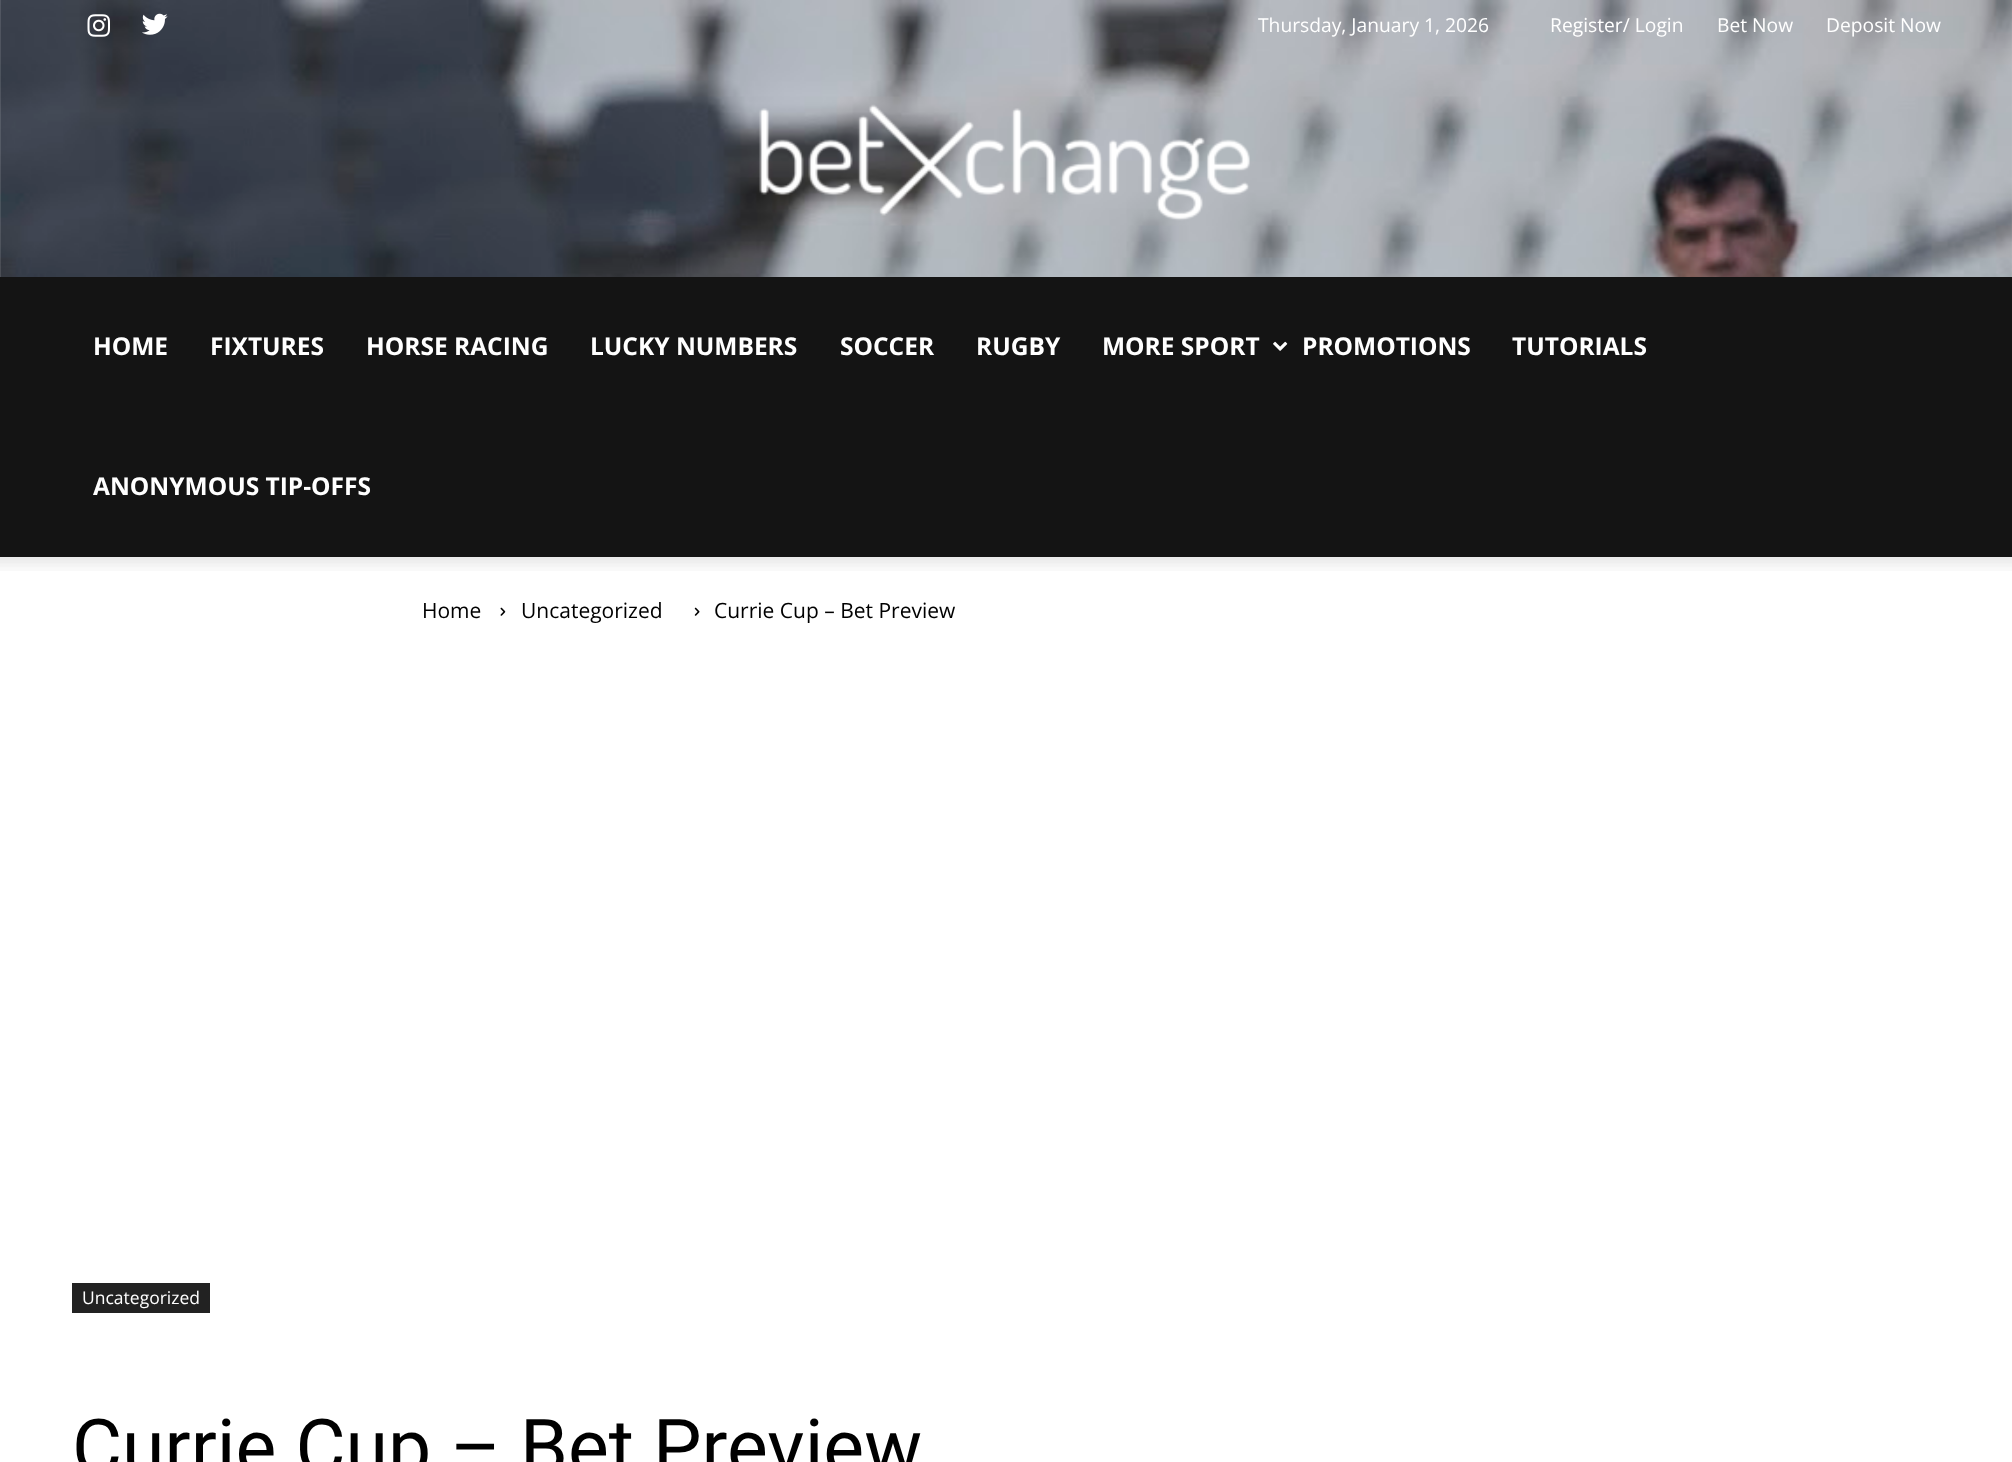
<svg xmlns="http://www.w3.org/2000/svg" width="2012" height="1462" viewBox="0 0 2012 1462">
  <rect width="100%" height="100%" fill="rgb(255,255,255)"/>
  <image x="0" y="0" width="2012" height="277" href="pic1.png"/>
  <image x="87" y="14" width="23" height="23" href="pic2.png"/>
  <image x="142" y="13" width="26" height="22" href="pic3.png"/>
  <g font-family="Open Sans" font-size="19.25" fill="rgb(255,255,255)">
    <text x="1258" y="32">Thursday, January 1, 2026</text>
    <text x="1550" y="32">Register/ Login</text>
    <text x="1717" y="32">Bet Now</text>
    <text x="1826" y="32">Deposit Now</text>
  </g>
  <image x="759" y="104" width="491" height="117" href="pic4.png"/>
  <rect x="0" y="277" width="2012" height="280" fill="rgb(20,20,20)"/>
  <g font-family="Open Sans" font-size="24.5" font-weight="bold" fill="rgb(255,255,255)">
    <text x="93" y="355">HOME</text>
    <text x="210" y="355">FIXTURES</text>
    <text x="366" y="355">HORSE RACING</text>
    <text x="590" y="355">LUCKY NUMBERS</text>
    <text x="840" y="355">SOCCER</text>
    <text x="976" y="355">RUGBY</text>
    <text x="1102" y="355">MORE SPORT</text>
  </g>
  <image x="1273" y="341" width="15" height="10" href="pic5.png"/>
  <g font-family="Open Sans" font-size="24.5" font-weight="bold" fill="rgb(255,255,255)">
    <text x="1302" y="355">PROMOTIONS</text>
    <text x="1512" y="355">TUTORIALS</text>
    <text x="93" y="495">ANONYMOUS TIP-OFFS</text>
  </g>
  <image x="0" y="557" width="2012" height="14" href="pic6.png"/>
  <text x="422" y="618" font-family="Open Sans" font-size="21" fill="rgb(0,0,0)">Home</text>
  <image x="500" y="607" width="6" height="9" href="pic7.png"/>
  <text x="521" y="618" font-family="Open Sans" font-size="21" fill="rgb(0,0,0)">Uncategorized</text>
  <image x="694" y="607" width="6" height="9" href="pic8.png"/>
  <text x="714" y="618" font-family="Open Sans" font-size="21" fill="rgb(0,0,0)">Currie Cup – Bet Preview</text>
  <rect x="72" y="1283" width="138" height="30" fill="rgb(34,34,34)"/>
  <text x="82" y="1304" font-family="Open Sans" font-size="17.5" fill="rgb(255,255,255)">Uncategorized</text>
  <text x="72" y="1474" font-family="Roboto" font-size="77" fill="rgb(0,0,0)">Currie Cup – Bet Preview</text>
</svg>
